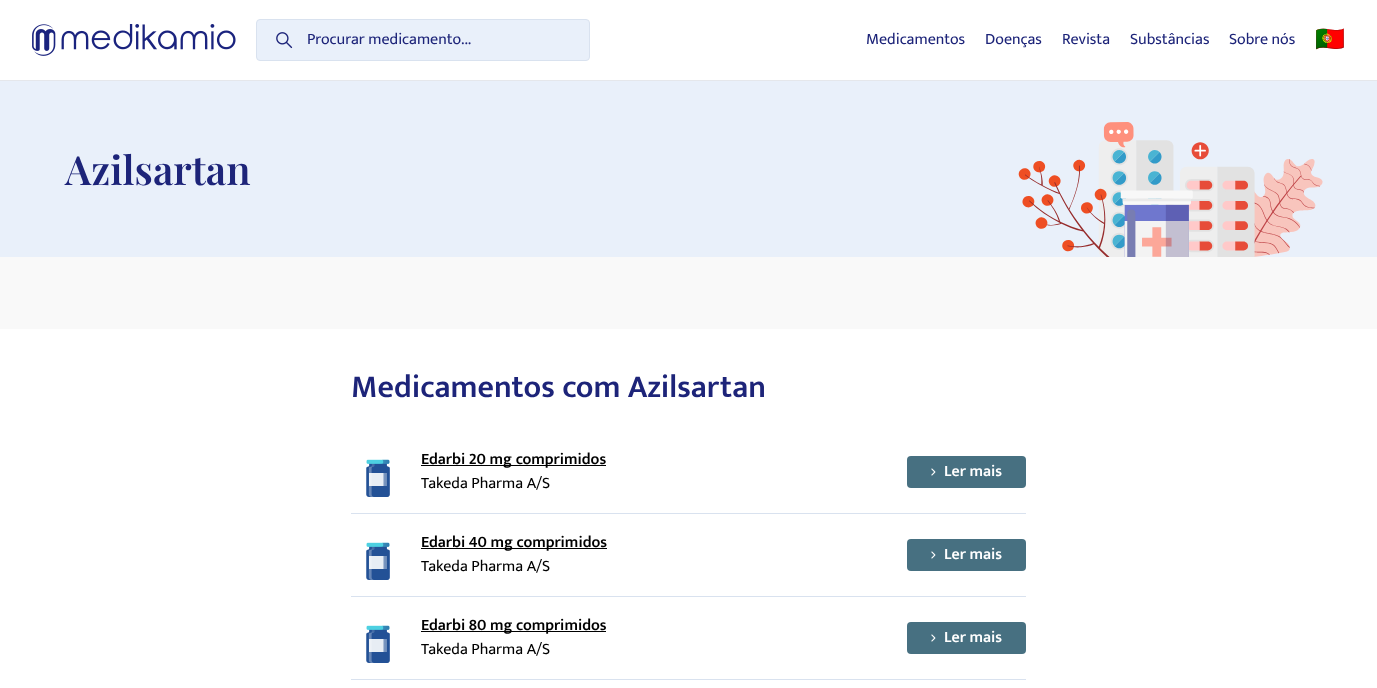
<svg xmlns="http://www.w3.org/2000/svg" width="1377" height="688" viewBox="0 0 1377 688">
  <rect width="100%" height="100%" fill="rgb(249,249,249)"/>
  <rect x="0" y="0" width="1377" height="80" fill="rgb(255,255,255)"/>
  <rect x="0" y="80" width="1377" height="1" fill="rgb(229,231,235)"/>
  <image x="32" y="24" width="204" height="32" href="pic1.png"/>
  <rect x="256.5" y="19.5" width="333" height="41" rx="3.5" fill="rgb(233,240,250)" stroke="rgb(217,226,239)"/>
  <image x="276" y="32" width="17" height="17" href="pic2.png"/>
  <g font-family="Mukta" font-size="16" fill="rgb(29,36,121)">
    <text x="307" y="44">Procurar medicamento...</text>
    <text x="866" y="44">Medicamentos</text>
    <text x="985" y="44">Doenças</text>
    <text x="1062" y="44">Revista</text>
    <text x="1130" y="44">Substâncias</text>
    <text x="1229" y="44">Sobre nós</text>
  </g>
  <text x="1315" y="47" font-family="Noto Color Emoji" font-size="24" font-weight="bold" fill="rgb(0,0,0)">🇵🇹</text>
  <rect x="0" y="81" width="1377" height="176" fill="rgb(233,240,250)"/>
  <text x="65" y="185" font-family="Playfair Display" font-size="40" font-weight="600" fill="rgb(29,36,121)">Azilsartan</text>
  <image x="1018" y="122" width="305" height="135" href="pic3.png"/>
  <rect x="0" y="329" width="1377" height="359" fill="rgb(255,255,255)"/>
  <text x="351" y="397" font-family="Mukta" font-size="32" font-weight="600" fill="rgb(29,36,121)">Medicamentos com Azilsartan</text>
  <rect x="351" y="513" width="675" height="1" fill="rgb(217,226,239)"/>
  <image x="366" y="459" width="24" height="38" href="pic4.png"/>
  <rect x="421" y="465" width="185" height="1" fill="rgb(0,0,0)"/>
  <text x="421" y="464" font-family="Mukta" font-size="16" font-weight="600" fill="rgb(0,0,0)">Edarbi 20 mg comprimidos</text>
  <text x="421" y="488" font-family="Mukta" font-size="16" fill="rgb(0,0,0)">Takeda Pharma A/S</text>
  <rect x="907" y="456" width="119" height="32" rx="4" fill="rgb(71,112,129)"/>
  <image x="931" y="468" width="5" height="8" href="pic5.png"/>
  <text x="944" y="476" font-family="Mukta" font-size="16" font-weight="600" fill="rgb(255,255,255)">Ler mais</text>
  <rect x="351" y="596" width="675" height="1" fill="rgb(217,226,239)"/>
  <image x="366" y="542" width="24" height="38" href="pic4.png"/>
  <rect x="421" y="548" width="186" height="1" fill="rgb(0,0,0)"/>
  <text x="421" y="547" font-family="Mukta" font-size="16" font-weight="600" fill="rgb(0,0,0)">Edarbi 40 mg comprimidos</text>
  <text x="421" y="571" font-family="Mukta" font-size="16" fill="rgb(0,0,0)">Takeda Pharma A/S</text>
  <rect x="907" y="539" width="119" height="32" rx="4" fill="rgb(71,112,129)"/>
  <image x="931" y="551" width="5" height="8" href="pic5.png"/>
  <text x="944" y="559" font-family="Mukta" font-size="16" font-weight="600" fill="rgb(255,255,255)">Ler mais</text>
  <rect x="351" y="679" width="675" height="1" fill="rgb(217,226,239)"/>
  <image x="366" y="625" width="24" height="38" href="pic4.png"/>
  <rect x="421" y="631" width="185" height="1" fill="rgb(0,0,0)"/>
  <text x="421" y="630" font-family="Mukta" font-size="16" font-weight="600" fill="rgb(0,0,0)">Edarbi 80 mg comprimidos</text>
  <text x="421" y="654" font-family="Mukta" font-size="16" fill="rgb(0,0,0)">Takeda Pharma A/S</text>
  <rect x="907" y="622" width="119" height="32" rx="4" fill="rgb(71,112,129)"/>
  <image x="931" y="634" width="5" height="8" href="pic5.png"/>
  <text x="944" y="642" font-family="Mukta" font-size="16" font-weight="600" fill="rgb(255,255,255)">Ler mais</text>
</svg>
